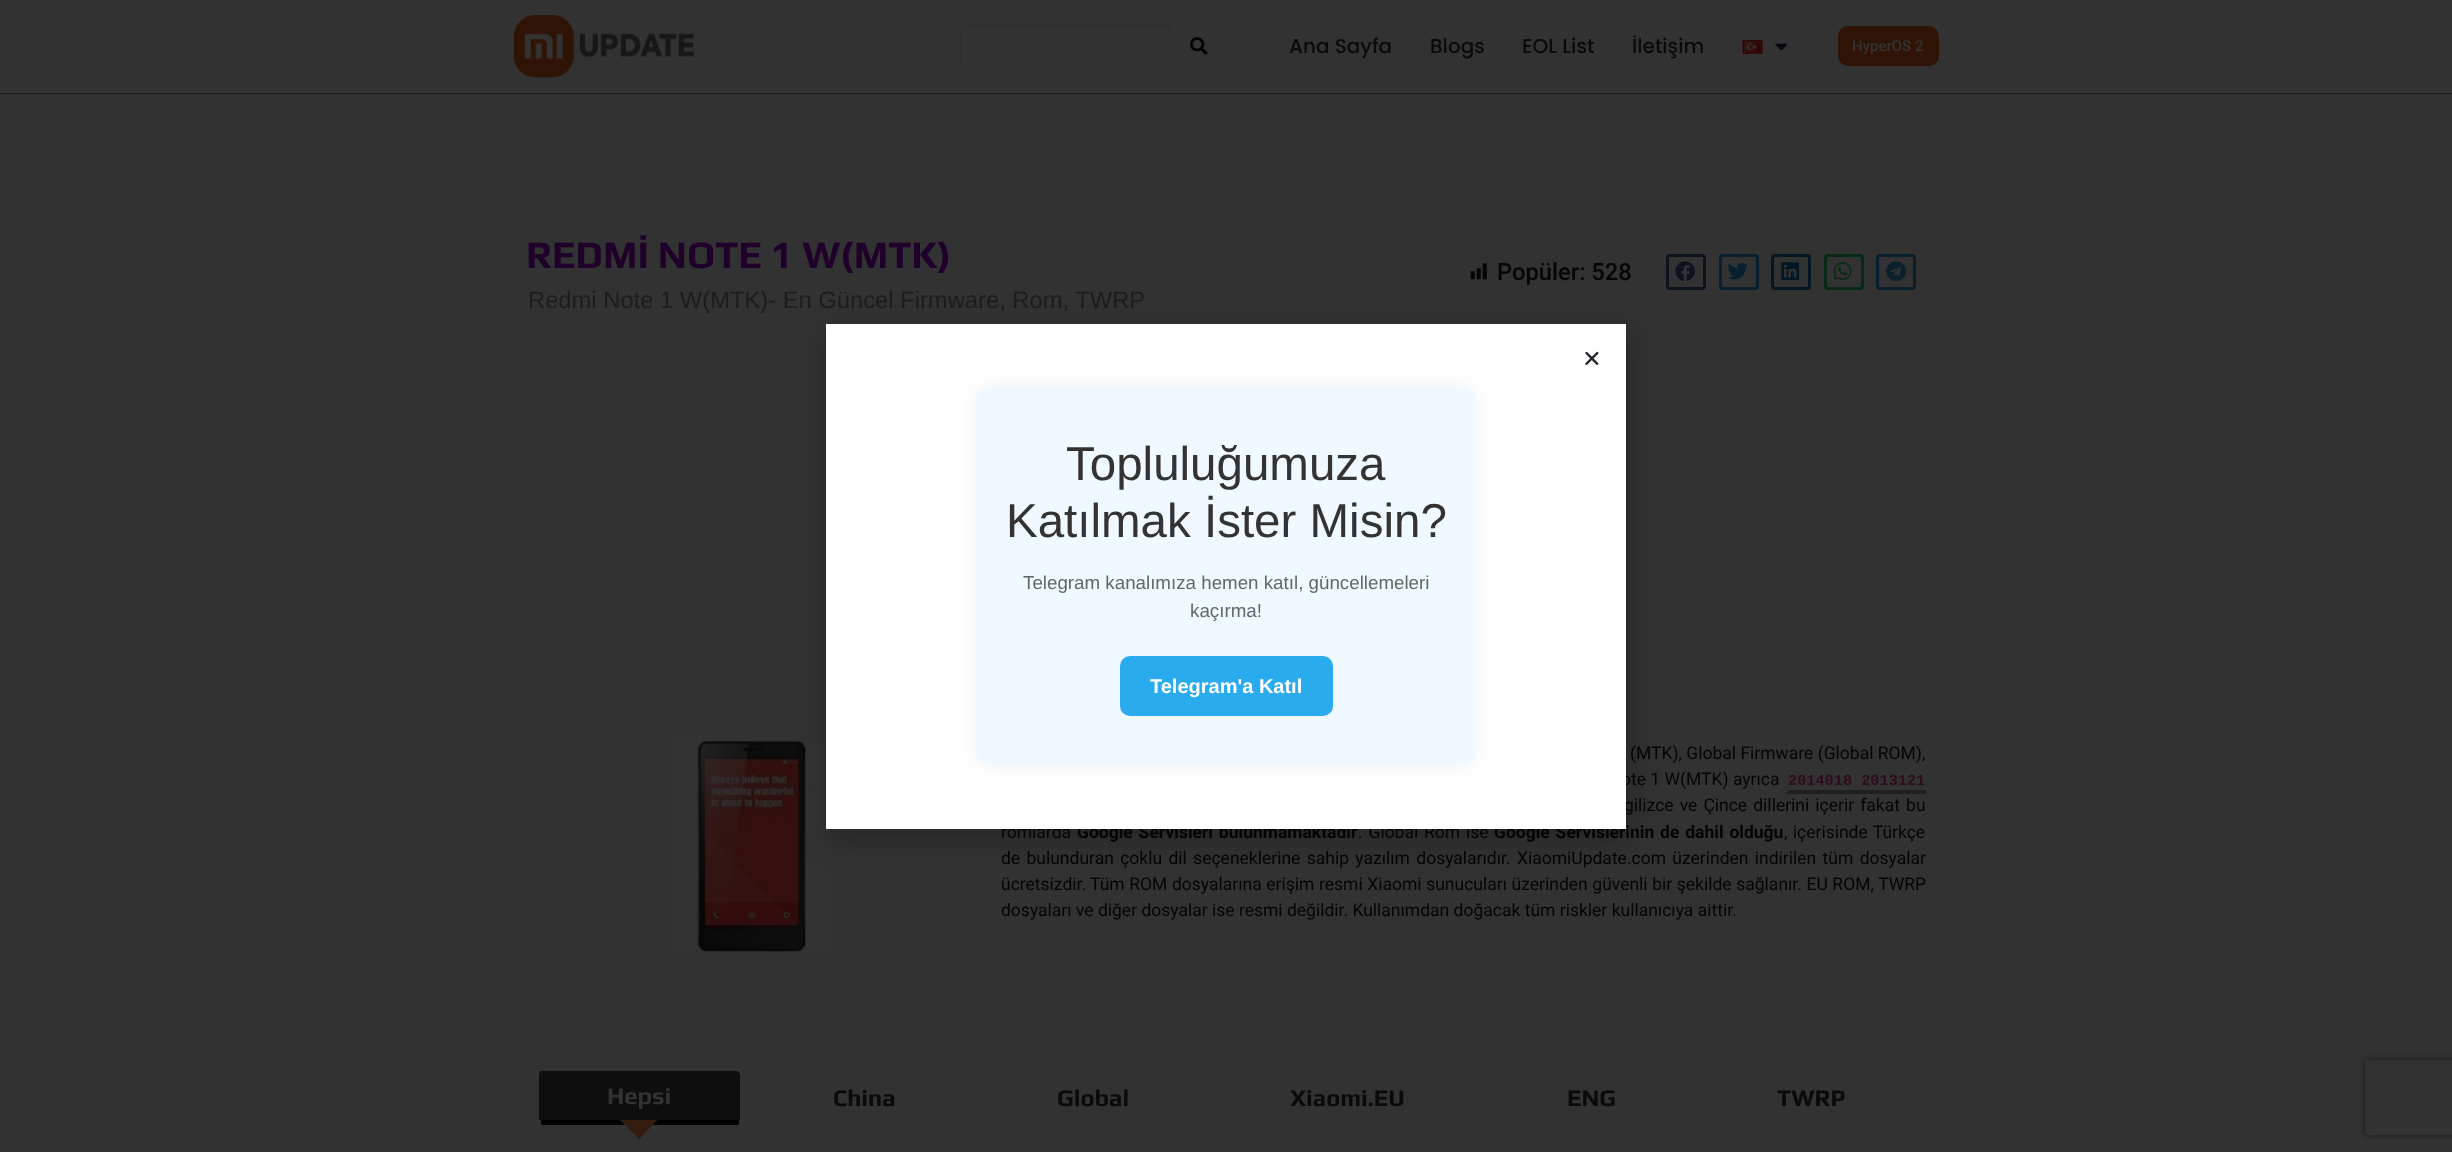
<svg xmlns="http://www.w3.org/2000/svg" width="2452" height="1152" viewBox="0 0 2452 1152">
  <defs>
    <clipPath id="clip1"><path d="M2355 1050H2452V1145H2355ZM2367.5 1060H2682.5C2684 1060 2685 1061 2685 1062.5V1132.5C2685 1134 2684 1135 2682.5 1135H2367.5C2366 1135 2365 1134 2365 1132.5V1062.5C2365 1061 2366 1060 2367.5 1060Z" clip-rule="evenodd"/></clipPath>
  </defs>
  <rect width="100%" height="100%" fill="rgb(50,50,50)"/>
  <rect x="0" y="93" width="2452" height="1" fill="rgb(26,26,26)"/>
  <image x="513" y="15" width="181" height="63" href="pic1.png"/>
  <path d="M966 24.5H1170.5V68.5H966C963 68.5 960.5 66 960.5 63V30C960.5 27 963 24.5 966 24.5Z" fill="none" stroke="rgb(45,46,47)"/>
  <image x="1190" y="37" width="18" height="18" href="pic2.png"/>
  <g font-family="Poppins" font-size="20" font-weight="500" fill="rgb(10,10,10)">
    <text x="1289" y="53">Ana Sayfa</text>
    <text x="1430" y="53">Blogs</text>
    <text x="1522" y="53">EOL List</text>
    <text x="1632" y="53">İletişim</text>
  </g>
  <image x="1742" y="39" width="21" height="15" href="pic3.png"/>
  <image x="1775" y="43" width="12" height="8" href="pic4.png"/>
  <rect x="1838" y="26" width="101" height="40" rx="10" fill="rgb(47,20,6)"/>
  <text x="1852" y="51" font-family="Roboto" font-size="15" font-weight="500" fill="rgb(51,51,51)">HyperOS 2</text>
  <text x="526" y="268" font-family="Play" font-size="38.75" font-weight="bold" fill="rgb(30,0,43)">REDMİ NOTE 1 W(MTK)</text>
  <text x="528" y="308" font-family="Liberation Sans" font-size="23.75" fill="rgb(29,29,29)">Redmi Note 1 W(MTK)- En Güncel Firmware, Rom, TWRP</text>
  <image x="1470" y="263" width="17" height="17" href="pic5.png"/>
  <text x="1497" y="280" font-family="Roboto" font-size="23.75" font-weight="500" fill="rgb(6,5,3)">Popüler: 528</text>
  <rect x="1667.5" y="255.5" width="37" height="33" rx="2.5" fill="none" stroke="rgb(12,18,30)" stroke-width="3"/>
  <image x="1675" y="261" width="20" height="20" href="pic6.png"/>
  <rect x="1720.5" y="255.5" width="37" height="33" rx="2.5" fill="none" stroke="rgb(6,32,48)" stroke-width="3"/>
  <image x="1727" y="262" width="21" height="18" href="pic7.png"/>
  <rect x="1772.5" y="255.5" width="37" height="33" rx="2.5" fill="none" stroke="rgb(0,24,36)" stroke-width="3"/>
  <image x="1781" y="262" width="19" height="18" href="pic8.png"/>
  <rect x="1825.5" y="255.5" width="37" height="33" rx="2.5" fill="none" stroke="rgb(7,42,20)" stroke-width="3"/>
  <image x="1833" y="262" width="19" height="18" href="pic9.png"/>
  <rect x="1877.5" y="255.5" width="37" height="33" rx="2.5" fill="none" stroke="rgb(9,33,45)" stroke-width="3"/>
  <image x="1886" y="261" width="20" height="20" href="pic10.png"/>
  <image x="671" y="740" width="160" height="213" href="pic11.png"/>
  <g font-family="Roboto" font-size="17.5" fill="rgb(6,5,3)">
    <text x="1630" y="759">(MTK), Global Firmware (Global ROM),</text>
    <text x="1621" y="785">ote 1 W(MTK) ayrıca</text>
  </g>
  <text x="1788" y="785" font-family="Liberation Mono" font-size="15.25" font-weight="bold" fill="rgb(46,12,28)">2014018 2013121</text>
  <path d="M1926 794H1785L1789 790H1926Z" fill="rgb(32,32,32)"/>
  <path d="M1785 794V769L1789 772.5V790Z" fill="rgb(48,48,48)"/>
  <g font-family="Roboto" font-size="17.5" fill="rgb(6,5,3)">
    <text x="1624" y="811" word-spacing="1.75">gilizce ve Çince dillerini içerir fakat bu</text>
    <text x="1001" y="838">romlarda</text>
  </g>
  <text x="1077" y="838" word-spacing="1.5" font-family="Roboto" font-size="17.5" font-weight="bold" fill="rgb(6,5,3)">Google Servisleri bulunmamaktadır</text>
  <text x="1358" y="838" word-spacing="1.5" font-family="Roboto" font-size="17.5" fill="rgb(6,5,3)">. Global Rom ise</text>
  <text x="1494" y="838" word-spacing="1.5" font-family="Roboto" font-size="17.5" font-weight="bold" fill="rgb(6,5,3)">Google Servislerinin de dahil olduğu</text>
  <g font-family="Roboto" font-size="17.5" fill="rgb(6,5,3)">
    <text x="1784" y="838" word-spacing="1">, içerisinde Türkçe</text>
    <text x="1001" y="864" word-spacing="2">de bulunduran çoklu dil seçeneklerine sahip yazılım dosyalarıdır.</text>
    <text x="1517" y="864" word-spacing="2">XiaomiUpdate.com üzerinden indirilen tüm dosyalar</text>
    <text x="1001" y="890">ücretsizdir.</text>
    <text x="1090" y="890" word-spacing="0.25">Tüm ROM dosyalarına erişim resmi Xiaomi sunucuları üzerinden güvenli bir şekilde sağlanır. EU ROM, TWRP</text>
    <text x="1001" y="916">dosyaları ve diğer dosyalar ise resmi değildir. Kullanımdan doğacak tüm riskler kullanıcıya aittir.</text>
  </g>
  <path d="M542 1071H736C738 1071 740 1073 740 1075V1120H539V1075C539 1073 540 1071 542 1071Z" fill="rgb(14,14,14)"/>
  <rect x="541" y="1120" width="198" height="5" fill="rgb(0,0,0)"/>
  <text x="607" y="1104" font-family="Play" font-size="23.75" font-weight="bold" fill="rgb(51,51,51)">Hepsi</text>
  <path d="M620 1120H657.5L639 1139Z" fill="rgb(51,27,14)"/>
  <g font-family="Play" font-size="23.75" font-weight="bold" fill="rgb(10,10,10)">
    <text x="833" y="1106">China</text>
    <text x="1057" y="1106">Global</text>
    <text x="1290" y="1106">Xiaomi.EU</text>
    <text x="1567" y="1106">ENG</text>
    <text x="1777" y="1106">TWRP</text>
  </g>
  <rect x="825" y="330" width="808" height="513" fill="rgba(0,0,0,0.2)" filter="blur(14.5px)"/>
  <rect x="826" y="324" width="800" height="505" fill="rgb(255,255,255)"/>
  <image x="1585" y="351" width="14" height="14" href="pic12.png"/>
  <rect x="976" y="386" width="500" height="380" rx="15" fill="rgba(0,0,0,0.05)" filter="blur(12.5px)"/>
  <rect x="976" y="386" width="500" height="380" rx="15" fill="rgb(240,249,255)"/>
  <g font-family="Liberation Sans" font-size="47.5" fill="rgb(51,51,51)">
    <text x="1066" y="480">Topluluğumuza</text>
    <text x="1006" y="537">Katılmak İster Misin?</text>
  </g>
  <g font-family="Liberation Sans" font-size="18.75" fill="rgb(102,102,102)">
    <text x="1023" y="589">Telegram kanalımıza hemen katıl, güncellemeleri</text>
    <text x="1190" y="617">kaçırma!</text>
  </g>
  <rect x="1120" y="656" width="213" height="60" rx="10" fill="rgb(42,171,238)"/>
  <text x="1150" y="693" font-family="Liberation Sans" font-size="20" font-weight="bold" fill="rgb(255,255,255)">Telegram'a Katıl</text>
  <g clip-path="url(#clip1)">
    <rect x="2365" y="1060" width="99" height="75" rx="2.5" fill="rgb(26,26,26)" filter="blur(3px)"/>
  </g>
</svg>
